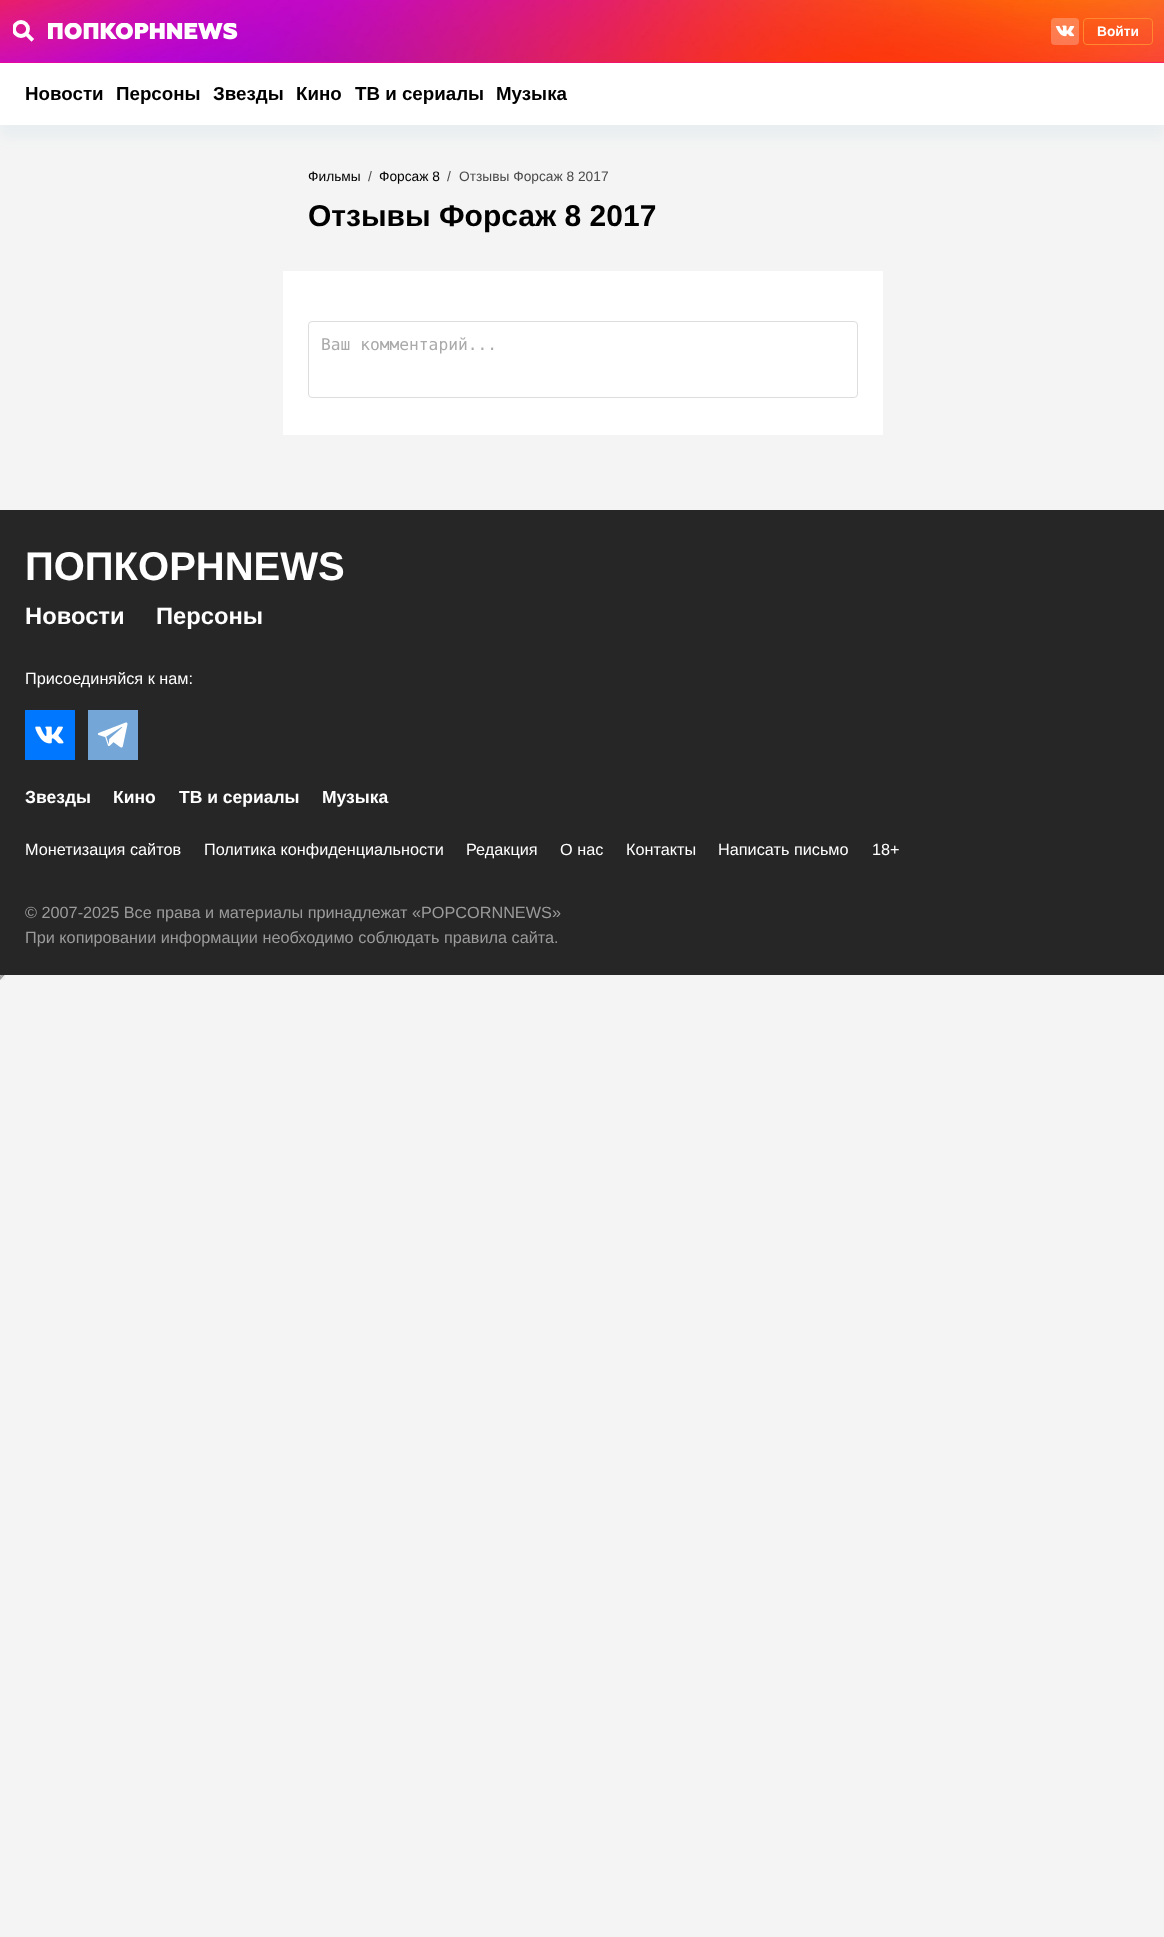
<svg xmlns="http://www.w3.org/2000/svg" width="1164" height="1937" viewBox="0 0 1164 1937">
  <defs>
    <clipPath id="clip1"><rect x="13" y="20" width="22" height="23"/></clipPath>
  </defs>
  <rect width="100%" height="100%" fill="rgb(244,244,244)"/>
  <rect x="0" y="75" width="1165" height="63" fill="rgba(65,146,193,0.06)" filter="blur(6px)"/>
  <rect x="0" y="62" width="1164" height="1" fill="rgb(255,0,138)"/>
  <image x="0" y="0" width="1164" height="63" href="pic1.png"/>
  <g clip-path="url(#clip1)">
    <circle cx="21" cy="29" r="7" fill="none" stroke="rgb(255,255,255)" stroke-width="3.8"/>
  </g>
  <path d="M27 34.5L31.5 39" fill="none" stroke="rgb(255,255,255)" stroke-width="3.8" stroke-linecap="square"/>
  <image x="48" y="23" width="190" height="17" href="pic2.png"/>
  <rect x="1051" y="18" width="28" height="27" rx="4" fill="rgba(255,255,255,0.25)"/>
  <image x="1055" y="25" width="20" height="12" href="pic3.png"/>
  <rect x="1083.5" y="18.5" width="69" height="26" rx="3.5" fill="none" stroke="rgb(255,135,47)"/>
  <text x="1097" y="36" font-family="Liberation Sans" font-size="13.75" font-weight="bold" fill="rgb(255,255,255)">Войти</text>
  <rect x="0" y="63" width="1164" height="62" fill="rgb(255,255,255)"/>
  <g font-family="Liberation Sans" font-size="18.75" font-weight="bold" fill="rgb(0,0,0)">
    <text x="25" y="100">Новости</text>
    <text x="116" y="100">Персоны</text>
    <text x="213" y="100">Звезды</text>
    <text x="296" y="100">Кино</text>
    <text x="355" y="100">ТВ и сериалы</text>
    <text x="496" y="100">Музыка</text>
  </g>
  <text x="308" y="181" font-family="Liberation Sans" font-size="13.75" fill="rgb(0,0,0)">Фильмы</text>
  <text x="368" y="181" font-family="Liberation Sans" font-size="13.75" fill="rgb(74,74,74)">/</text>
  <text x="379" y="181" font-family="Liberation Sans" font-size="13.75" fill="rgb(0,0,0)">Форсаж 8</text>
  <g font-family="Liberation Sans" font-size="13.75" fill="rgb(74,74,74)">
    <text x="447" y="181">/</text>
    <text x="459" y="181">Отзывы Форсаж 8 2017</text>
  </g>
  <text x="308" y="226" font-family="Liberation Sans" font-size="30" font-weight="bold" fill="rgb(0,0,0)">Отзывы Форсаж 8 2017</text>
  <rect x="283" y="271" width="600" height="164" fill="rgb(255,255,255)"/>
  <rect x="308.5" y="321.5" width="549" height="76" rx="3.5" fill="none" stroke="rgb(221,221,221)"/>
  <text x="321" y="350" font-family="DejaVu Sans Mono" font-size="16.25" fill="rgb(170,170,170)">Ваш комментарий...</text>
  <rect x="0" y="510" width="1164" height="465" fill="rgb(38,38,38)"/>
  <text x="25" y="580" font-family="Liberation Sans" font-size="40" font-weight="bold" fill="rgb(255,255,255)">ПОПКОРНNEWS</text>
  <g font-family="Liberation Sans" font-size="23.75" font-weight="bold" fill="rgb(255,255,255)">
    <text x="25" y="624">Новости</text>
    <text x="156" y="624">Персоны</text>
  </g>
  <text x="25" y="684" font-family="Liberation Sans" font-size="16.25" fill="rgb(255,255,255)">Присоединяйся к нам:</text>
  <rect x="25" y="710" width="50" height="50" fill="rgb(0,119,255)"/>
  <image x="35" y="726" width="29" height="18" href="pic4.png"/>
  <rect x="88" y="710" width="50" height="50" fill="rgb(116,167,215)"/>
  <image x="98" y="722" width="30" height="26" href="pic5.png"/>
  <g font-family="Liberation Sans" font-size="17.5" font-weight="bold" fill="rgb(255,255,255)">
    <text x="25" y="803">Звезды</text>
    <text x="113" y="803">Кино</text>
    <text x="179" y="803">ТВ и сериалы</text>
    <text x="322" y="803">Музыка</text>
  </g>
  <g font-family="Liberation Sans" font-size="16.25" fill="rgb(255,255,255)">
    <text x="25" y="855">Монетизация сайтов</text>
    <text x="204" y="855">Политика конфиденциальности</text>
    <text x="466" y="855">Редакция</text>
    <text x="560" y="855">О нас</text>
    <text x="626" y="855">Контакты</text>
    <text x="718" y="855">Написать письмо</text>
    <text x="872" y="855">18+</text>
  </g>
  <g font-family="Liberation Sans" font-size="16.25" fill="rgb(155,155,155)">
    <text>
      <tspan x="25" y="918">© 2007-2025 Все права и материалы принадлежат «POPCORNNEWS»</tspan>
      <tspan x="25" y="943">При копировании информации необходимо соблюдать правила сайта.</tspan>
    </text>
  </g>
  <path d="M0 975H5L2.5 977.5Z" fill="rgb(159,159,159)"/>
  <path d="M5 975V980L2.5 977.5Z" fill="rgb(238,238,238)"/>
  <path d="M5 980H0L2.5 977.5Z" fill="rgb(238,238,238)"/>
  <path d="M0 980V975L2.5 977.5Z" fill="rgb(159,159,159)"/>
</svg>
